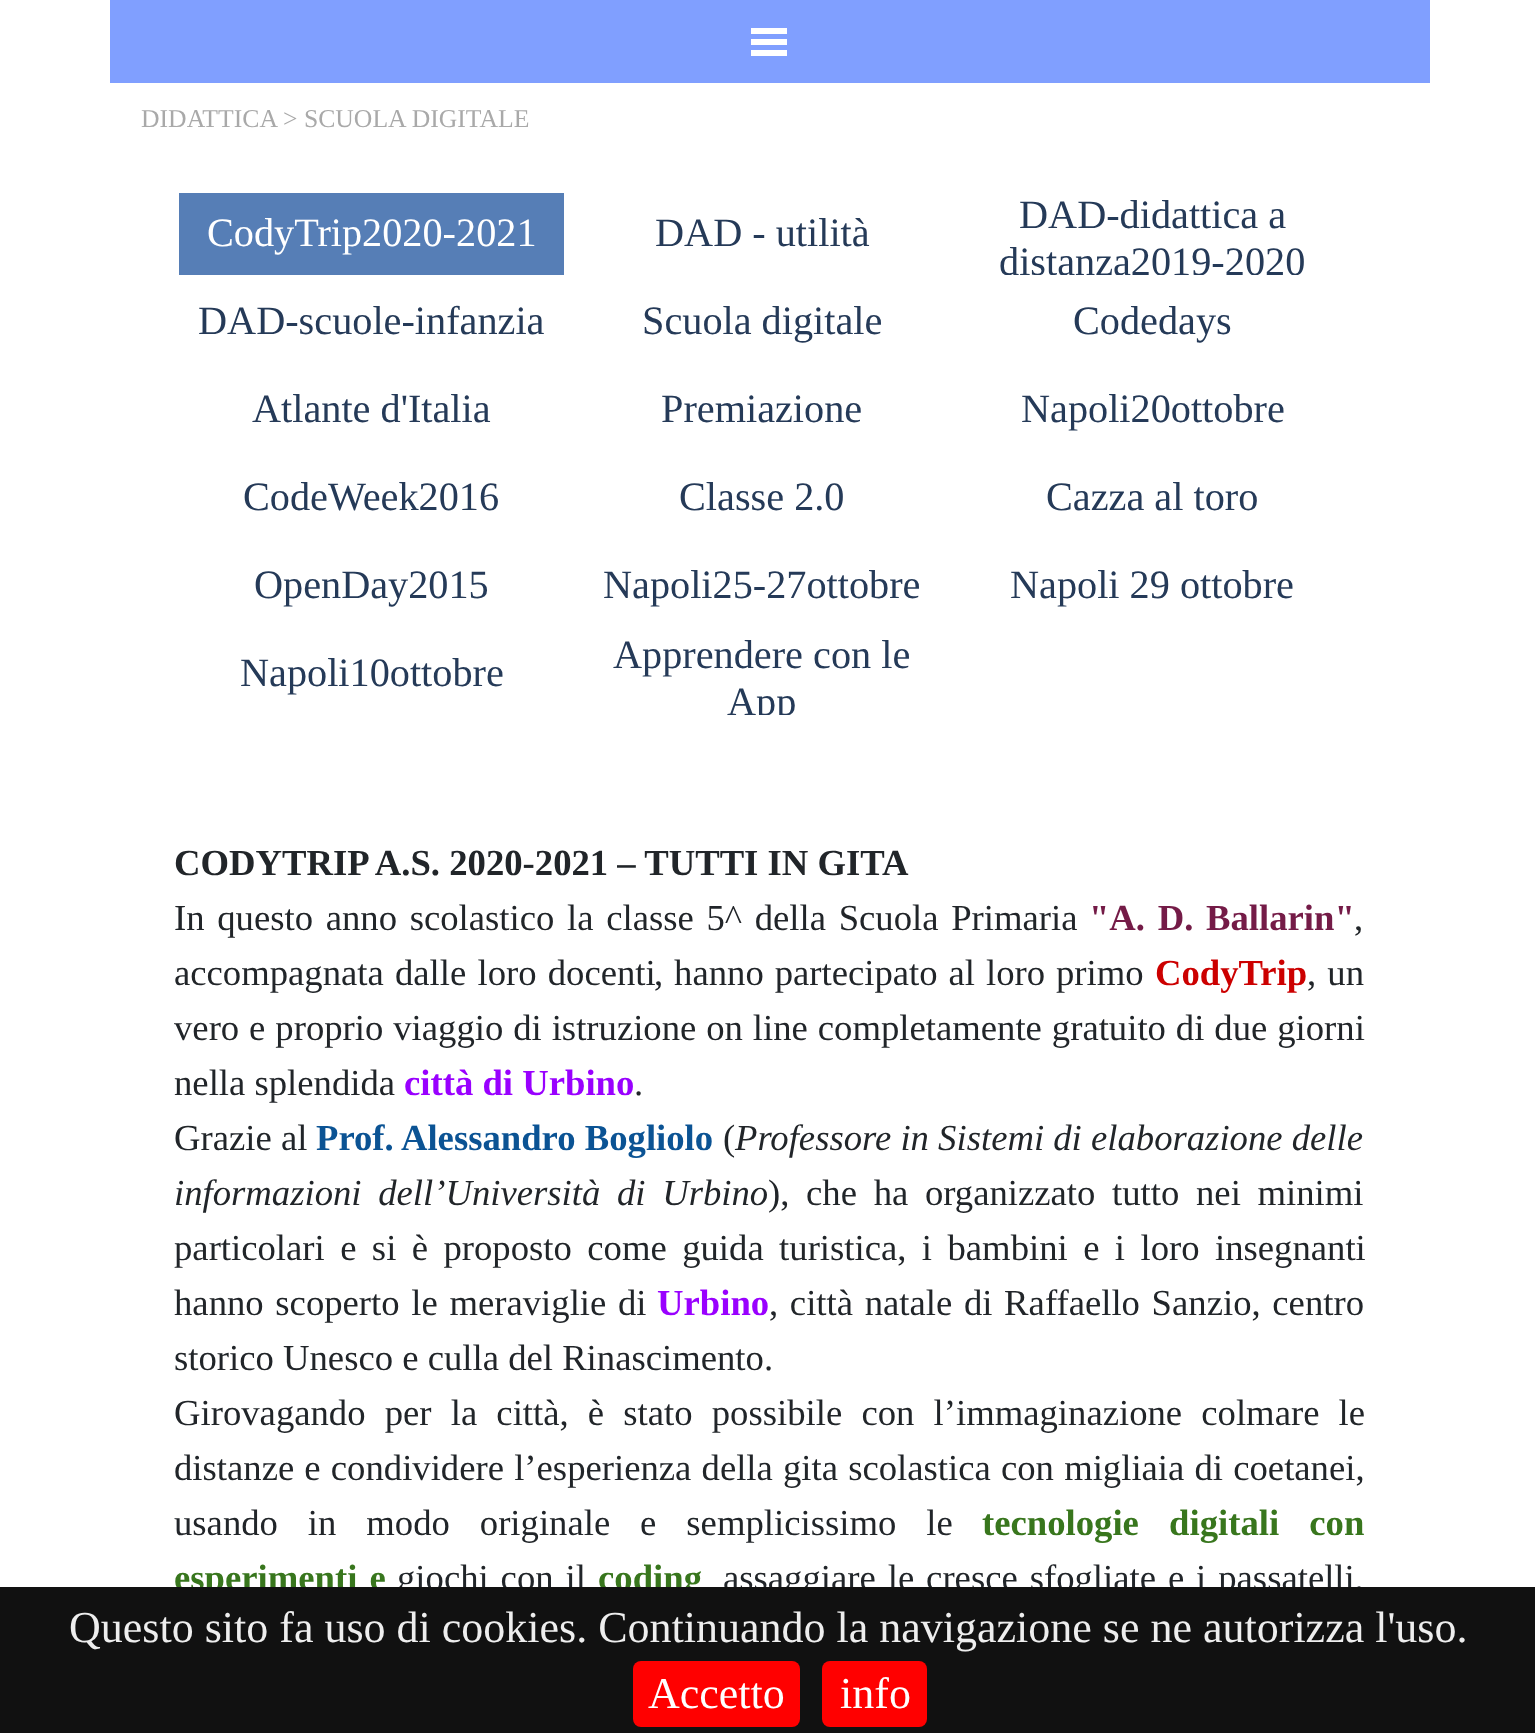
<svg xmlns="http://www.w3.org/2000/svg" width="1535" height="1733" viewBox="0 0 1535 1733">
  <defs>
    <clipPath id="clip1"><rect x="960" y="193" width="385" height="82"/></clipPath>
    <clipPath id="clip2"><rect x="569" y="633" width="385" height="82"/></clipPath>
  </defs>
  <rect width="100%" height="100%" fill="rgb(255,255,255)"/>
  <rect x="110" y="0" width="1320" height="83" fill="rgb(128,159,255)"/>
  <rect x="751" y="28" width="36" height="6" fill="rgb(255,255,255)"/>
  <rect x="751" y="39" width="36" height="6" fill="rgb(255,255,255)"/>
  <rect x="751" y="50" width="36" height="6" fill="rgb(255,255,255)"/>
  <text x="141" y="127" font-family="Liberation Serif" font-size="25.7" fill="rgb(169,169,169)">DIDATTICA &gt; SCUOLA DIGITALE</text>
  <rect x="179" y="193" width="385" height="82" fill="rgb(86,126,182)"/>
  <text x="207" y="246" font-family="Liberation Serif" font-size="40.25" fill="rgb(255,255,255)">CodyTrip2020-2021</text>
  <g font-family="Liberation Serif" font-size="40.25" fill="rgb(37,58,88)">
    <text x="655" y="246">DAD - utilità</text>
    <text x="1019" y="228">DAD-didattica a</text>
  </g>
  <g clip-path="url(#clip1)">
    <text x="999" y="275" font-family="Liberation Serif" font-size="40.25" fill="rgb(37,58,88)">distanza2019-2020</text>
  </g>
  <g font-family="Liberation Serif" font-size="40.25" fill="rgb(37,58,88)">
    <text x="198" y="334">DAD-scuole-infanzia</text>
    <text x="642" y="334">Scuola digitale</text>
    <text x="1073" y="334">Codedays</text>
    <text x="252" y="422">Atlante d'Italia</text>
    <text x="661" y="422">Premiazione</text>
    <text x="1021" y="422">Napoli20ottobre</text>
    <text x="243" y="510">CodeWeek2016</text>
    <text x="679" y="510">Classe 2.0</text>
    <text x="1046" y="510">Cazza al toro</text>
    <text x="254" y="598">OpenDay2015</text>
    <text x="603" y="598">Napoli25-27ottobre</text>
    <text x="1010" y="598">Napoli 29 ottobre</text>
    <text x="240" y="686">Napoli10ottobre</text>
    <text x="613" y="668">Apprendere con le</text>
  </g>
  <g clip-path="url(#clip2)">
    <text x="727" y="715" font-family="Liberation Serif" font-size="40.25" fill="rgb(37,58,88)">App</text>
  </g>
  <text x="174" y="875" font-family="Liberation Serif" font-size="36.7" font-weight="bold" fill="rgb(33,37,41)">CODYTRIP A.S. 2020-2021 – TUTTI IN GITA</text>
  <text x="174" y="930" word-spacing="3.5" font-family="Liberation Serif" font-size="36.7" fill="rgb(33,37,41)">In questo anno scolastico la classe 5^ della Scuola Primaria</text>
  <text x="1089" y="930" word-spacing="3.5" font-family="Liberation Serif" font-size="36.7" font-weight="bold" fill="rgb(116,27,71)">"A. D. Ballarin"</text>
  <g font-family="Liberation Serif" font-size="36.7" fill="rgb(33,37,41)">
    <text x="1354" y="930">,</text>
    <text x="174" y="985" word-spacing="2">accompagnata dalle loro docenti</text>
    <text x="654" y="985" word-spacing="1.75">, hanno partecipato al loro primo</text>
  </g>
  <text x="1155" y="985" font-family="Liberation Serif" font-size="36.7" font-weight="bold" fill="rgb(204,0,0)">CodyTrip</text>
  <g font-family="Liberation Serif" font-size="36.7" fill="rgb(33,37,41)">
    <text x="1307" y="985" word-spacing="2">, un</text>
    <text>
      <tspan x="174" y="1040" word-spacing="0.75">vero e proprio viaggio di istruzione on line completamente gratuito di due giorni</tspan>
      <tspan x="174" y="1095">nella splendida</tspan>
    </text>
  </g>
  <text x="404" y="1095" font-family="Liberation Serif" font-size="36.7" font-weight="bold" fill="rgb(153,0,255)">città di Urbino</text>
  <g font-family="Liberation Serif" font-size="36.7" fill="rgb(33,37,41)">
    <text x="634" y="1095">.</text>
    <text x="174" y="1150">Grazie al</text>
  </g>
  <text x="316" y="1150" font-family="Liberation Serif" font-size="36.7" font-weight="bold" fill="rgb(11,83,148)">Prof. Alessandro Bogliolo</text>
  <text x="723" y="1150" font-family="Liberation Serif" font-size="36.7" fill="rgb(33,37,41)">(</text>
  <g font-family="Liberation Serif" font-size="36.7" font-style="italic" fill="rgb(33,37,41)">
    <text x="735" y="1150">Professore in Sistemi di elaborazione delle</text>
    <text x="174" y="1205" word-spacing="7.5">informazioni dell’Università di Urbino</text>
  </g>
  <g font-family="Liberation Serif" font-size="36.7" fill="rgb(33,37,41)">
    <text x="768" y="1205" word-spacing="7.5">), che ha organizzato tutto nei minimi</text>
    <text>
      <tspan x="174" y="1260" word-spacing="6.25">particolari e si è proposto come guida turistica, i bambini e i loro insegnanti</tspan>
      <tspan x="174" y="1315" word-spacing="2.5">hanno scoperto le meraviglie di</tspan>
    </text>
  </g>
  <text x="657" y="1315" font-family="Liberation Serif" font-size="36.7" font-weight="bold" fill="rgb(153,0,255)">Urbino</text>
  <g font-family="Liberation Serif" font-size="36.7" fill="rgb(33,37,41)">
    <text x="769" y="1315" word-spacing="2.5">, città natale di Raffaello Sanzio, centro</text>
    <text>
      <tspan x="174" y="1370">storico Unesco e culla del Rinascimento.</tspan>
      <tspan x="174" y="1425" word-spacing="10">Girovagando per la città, è stato possibile con l’immaginazione colmare le</tspan>
      <tspan x="174" y="1480" word-spacing="1">distanze e condividere l’esperienza della gita scolastica con migliaia di coetanei,</tspan>
      <tspan x="174" y="1535" word-spacing="20.75">usando in modo originale e semplicissimo le</tspan>
    </text>
  </g>
  <g font-family="Liberation Serif" font-size="36.7" font-weight="bold" fill="rgb(56,118,29)">
    <text x="982" y="1535" word-spacing="21">tecnologie digitali con</text>
    <text x="174" y="1590" word-spacing="3">esperimenti e</text>
  </g>
  <text x="397" y="1590" word-spacing="2.75" font-family="Liberation Serif" font-size="36.7" fill="rgb(33,37,41)">giochi con il</text>
  <text x="598" y="1590" font-family="Liberation Serif" font-size="36.7" font-weight="bold" fill="rgb(56,118,29)">coding</text>
  <text x="723" y="1590" word-spacing="2.75" font-family="Liberation Serif" font-size="36.7" fill="rgb(33,37,41)">assaggiare le cresce sfogliate e i passatelli,</text>
  <rect x="0" y="1587" width="1535" height="146" fill="rgb(17,17,17)"/>
  <text x="69" y="1642" font-family="Liberation Serif" font-size="44" fill="rgb(238,238,238)">Questo sito fa uso di cookies. Continuando la navigazione se ne autorizza l'uso.</text>
  <rect x="633" y="1661" width="167" height="66" rx="8" fill="rgb(255,0,0)"/>
  <text x="648" y="1708" font-family="Liberation Serif" font-size="44" fill="rgb(255,255,255)">Accetto</text>
  <rect x="822" y="1661" width="105" height="66" rx="8" fill="rgb(255,0,0)"/>
  <text x="840" y="1708" font-family="Liberation Serif" font-size="44" fill="rgb(255,255,255)">info</text>
</svg>
